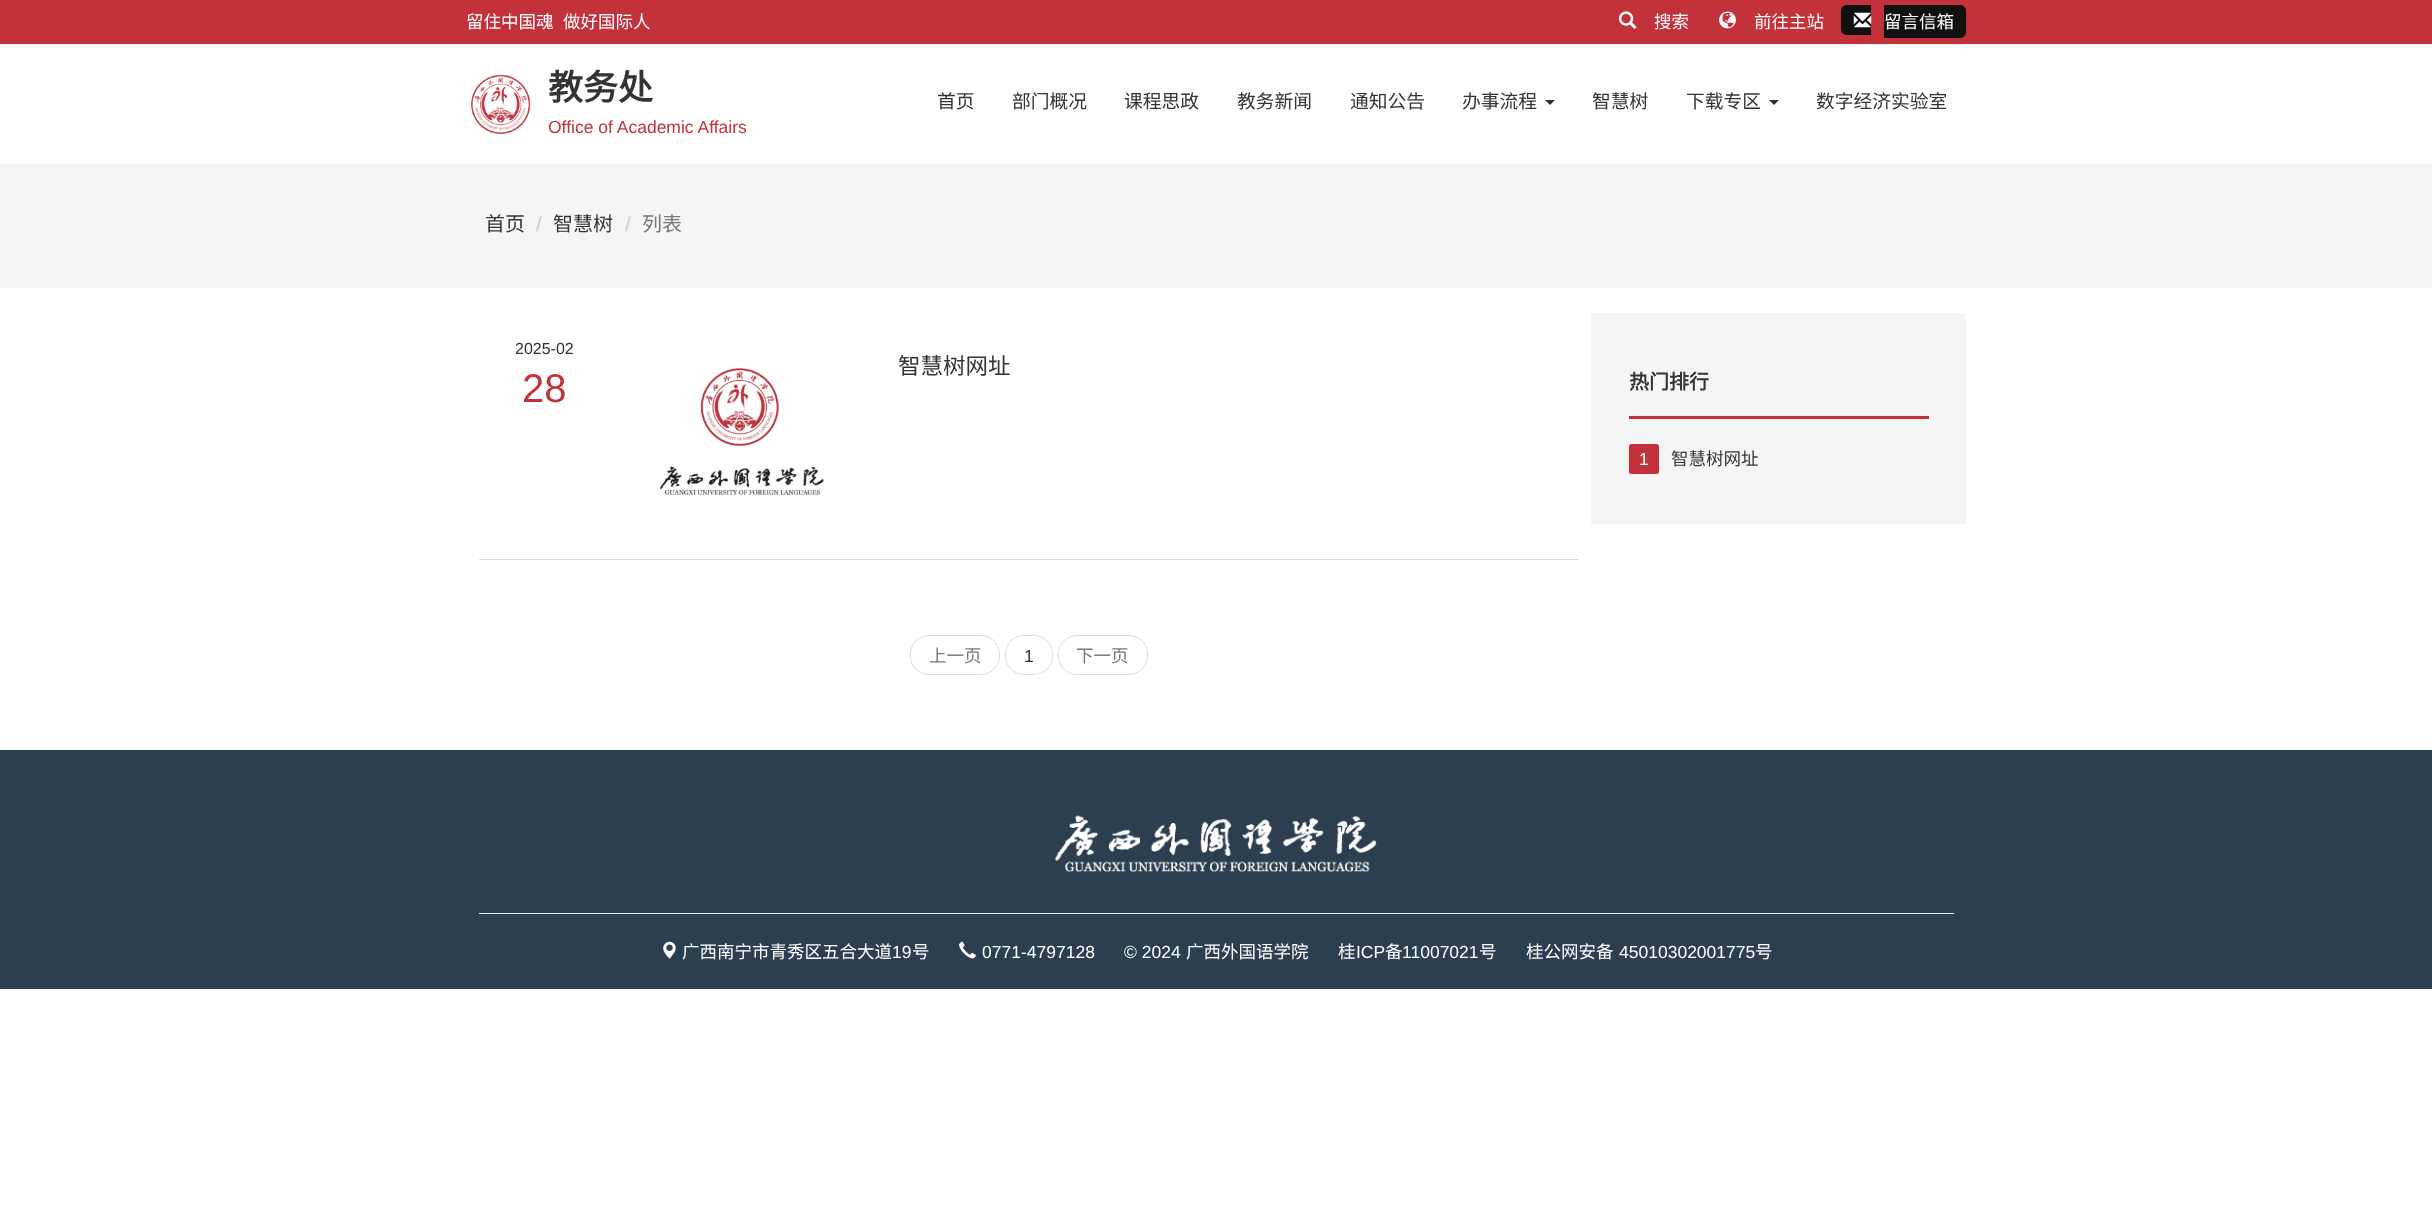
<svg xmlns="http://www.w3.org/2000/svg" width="2432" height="1223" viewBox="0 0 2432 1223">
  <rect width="100%" height="100%" fill="rgb(255,255,255)"/>
  <rect x="0" y="0" width="2432" height="44" fill="rgb(195,50,59)"/>
  <rect x="0" y="44" width="2432" height="1" fill="rgb(241,241,241)"/>
  <g font-family="Noto Sans CJK SC" font-size="17.5" fill="rgb(255,255,255)">
    <text x="466" y="28">留住中国魂</text>
    <text x="563" y="28">做好国际人</text>
  </g>
  <image x="1618" y="11" width="19" height="18" href="pic1.png"/>
  <text x="1654" y="28" font-family="Noto Sans CJK SC" font-size="17.5" fill="rgb(255,255,255)">搜索</text>
  <image x="1719" y="11" width="17" height="18" href="pic2.png"/>
  <text x="1754" y="28" font-family="Noto Sans CJK SC" font-size="17.5" fill="rgb(255,255,255)">前往主站</text>
  <path d="M1847 5H1871V35H1847C1843.5 35 1841 32.5 1841 29V11C1841 7.5 1843.5 5 1847 5Z" fill="rgb(17,17,17)"/>
  <path d="M1884 5H1960C1963.5 5 1966 7.5 1966 11V32C1966 35.5 1963.5 38 1960 38H1884Z" fill="rgb(17,17,17)"/>
  <image x="1853" y="12" width="19" height="16" href="pic3.png"/>
  <text x="1884" y="28" font-family="Noto Sans CJK SC" font-size="17.5" fill="rgb(255,255,255)">留言信箱</text>
  <image x="471" y="75" width="60" height="59" href="pic4.png"/>
  <text x="548" y="100" font-family="Noto Sans CJK SC" font-size="35" font-weight="bold" fill="rgb(51,51,51)">教务处</text>
  <text x="548" y="133" font-family="Liberation Sans" font-size="17.5" fill="rgb(195,50,59)">Office of Academic Affairs</text>
  <g font-family="Noto Sans CJK SC" font-size="18.75" fill="rgb(51,51,51)">
    <text x="937" y="108">首页</text>
    <text x="1012" y="108">部门概况</text>
    <text x="1124" y="108">课程思政</text>
    <text x="1237" y="108">教务新闻</text>
    <text x="1350" y="108">通知公告</text>
    <text x="1462" y="108">办事流程</text>
  </g>
  <path d="M1545 100H1555L1550 105Z" fill="rgb(51,51,51)"/>
  <g font-family="Noto Sans CJK SC" font-size="18.75" fill="rgb(51,51,51)">
    <text x="1592" y="108">智慧树</text>
    <text x="1686" y="108">下载专区</text>
  </g>
  <path d="M1769 100H1779L1774 105Z" fill="rgb(51,51,51)"/>
  <text x="1816" y="108" font-family="Noto Sans CJK SC" font-size="18.75" fill="rgb(51,51,51)">数字经济实验室</text>
  <rect x="0" y="164" width="2432" height="124" fill="rgb(245,245,245)"/>
  <text x="485" y="231" font-family="Noto Sans CJK SC" font-size="20" fill="rgb(51,51,51)">首页</text>
  <text x="536" y="231" font-family="Liberation Sans" font-size="20" fill="rgb(204,204,204)">/</text>
  <text x="553" y="231" font-family="Noto Sans CJK SC" font-size="20" fill="rgb(51,51,51)">智慧树</text>
  <text x="625" y="231" font-family="Liberation Sans" font-size="20" fill="rgb(204,204,204)">/</text>
  <text x="642" y="231" font-family="Noto Sans CJK SC" font-size="20" fill="rgb(119,119,119)">列表</text>
  <rect x="479" y="559" width="1100" height="1" fill="rgb(221,221,221)"/>
  <text x="515" y="354" font-family="Liberation Sans" font-size="16" fill="rgb(51,51,51)">2025-02</text>
  <text x="522" y="402" font-family="Liberation Sans" font-size="40" fill="rgb(195,50,59)">28</text>
  <image x="660" y="367" width="164" height="129" href="pic5.png"/>
  <text x="898" y="374" font-family="Noto Sans CJK SC" font-size="22.5" fill="rgb(51,51,51)">智慧树网址</text>
  <rect x="910.5" y="635.5" width="89" height="39" rx="18.5" fill="none" stroke="rgb(221,221,221)"/>
  <text x="929" y="662" font-family="Noto Sans CJK SC" font-size="17.5" fill="rgb(119,119,119)">上一页</text>
  <rect x="1005.5" y="635.5" width="47" height="39" rx="18.5" fill="none" stroke="rgb(221,221,221)"/>
  <text x="1024" y="662" font-family="Liberation Sans" font-size="17.5" fill="rgb(51,51,51)">1</text>
  <rect x="1058.5" y="635.5" width="89" height="39" rx="18.5" fill="none" stroke="rgb(221,221,221)"/>
  <text x="1076" y="662" font-family="Noto Sans CJK SC" font-size="17.5" fill="rgb(119,119,119)">下一页</text>
  <rect x="1591" y="313" width="375" height="211" fill="rgb(245,245,245)"/>
  <rect x="1629" y="416" width="300" height="3" fill="rgb(195,50,59)"/>
  <text x="1629" y="389" font-family="Noto Sans CJK SC" font-size="20" font-weight="bold" fill="rgb(51,51,51)">热门排行</text>
  <rect x="1629" y="444" width="30" height="30" rx="2.5" fill="rgb(195,50,59)"/>
  <text x="1639" y="465" font-family="Liberation Sans" font-size="17.5" fill="rgb(255,255,255)">1</text>
  <text x="1671" y="465" font-family="Noto Sans CJK SC" font-size="17.5" fill="rgb(51,51,51)">智慧树网址</text>
  <rect x="0" y="750" width="2432" height="239" fill="rgb(45,62,80)"/>
  <image x="1055" y="815" width="322" height="58" href="pic6.png"/>
  <rect x="479" y="913" width="1475" height="1" fill="rgb(238,238,238)"/>
  <image x="663" y="941" width="13" height="18" href="pic7.png"/>
  <text x="682" y="958" font-family="Noto Sans CJK SC" font-size="17.5" fill="rgb(255,255,255)">广西南宁市青秀区五合大道</text>
  <text x="892" y="958" font-family="Liberation Sans" font-size="17.5" fill="rgb(255,255,255)">19</text>
  <text x="912" y="958" font-family="Noto Sans CJK SC" font-size="17.5" fill="rgb(255,255,255)">号</text>
  <image x="959" y="941" width="17" height="18" href="pic8.png"/>
  <g font-family="Liberation Sans" font-size="17.5" fill="rgb(255,255,255)">
    <text x="982" y="958">0771-4797128</text>
    <text x="1124" y="958">© 2024</text>
  </g>
  <g font-family="Noto Sans CJK SC" font-size="17.5" fill="rgb(255,255,255)">
    <text x="1186" y="958">广西外国语学院</text>
    <text x="1338" y="958">桂</text>
  </g>
  <text x="1356" y="958" font-family="Liberation Sans" font-size="17.5" fill="rgb(255,255,255)">ICP</text>
  <text x="1385" y="958" font-family="Noto Sans CJK SC" font-size="17.5" fill="rgb(255,255,255)">备</text>
  <text x="1402" y="958" font-family="Liberation Sans" font-size="17.5" fill="rgb(255,255,255)">11007021</text>
  <g font-family="Noto Sans CJK SC" font-size="17.5" fill="rgb(255,255,255)">
    <text x="1479" y="958">号</text>
    <text x="1526" y="958">桂公网安备</text>
  </g>
  <text x="1619" y="958" font-family="Liberation Sans" font-size="17.5" fill="rgb(255,255,255)">45010302001775</text>
  <text x="1755" y="958" font-family="Noto Sans CJK SC" font-size="17.5" fill="rgb(255,255,255)">号</text>
</svg>
